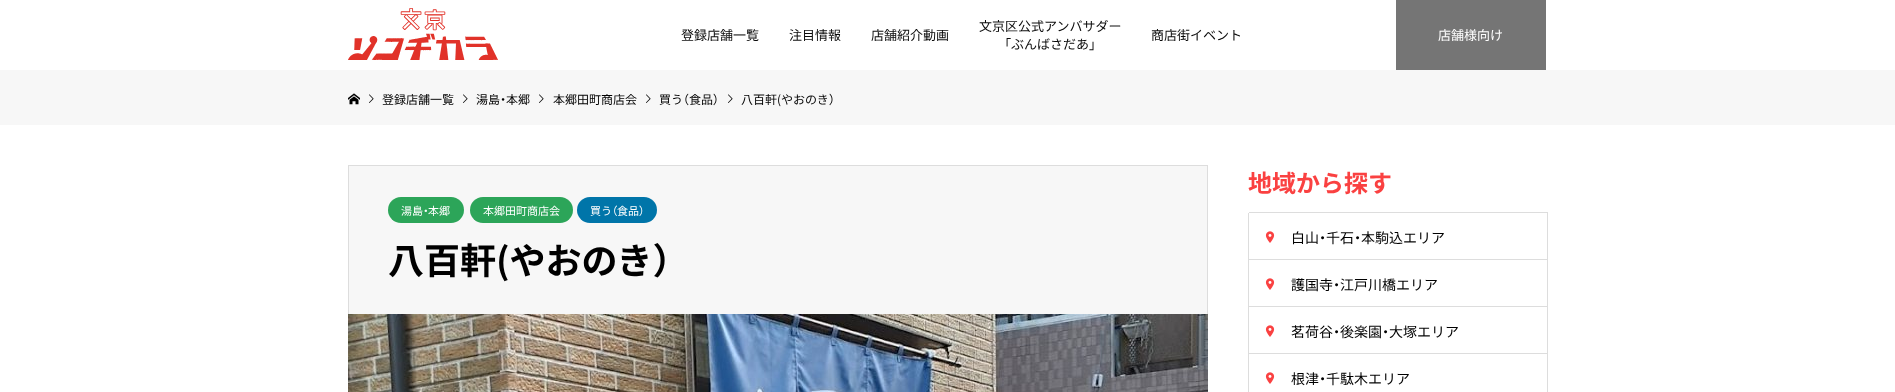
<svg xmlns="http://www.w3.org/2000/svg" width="1895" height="392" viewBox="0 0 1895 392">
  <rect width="100%" height="100%" fill="rgb(255,255,255)"/>
  <image x="348" y="8" width="150" height="52" href="pic1.png"/>
  <g font-family="Noto Sans JP" font-size="13" fill="rgb(10,10,10)">
    <text x="681" y="40">登録店舗一覧</text>
    <text x="789" y="40">注目情報</text>
    <text x="871" y="40">店舗紹介動画</text>
    <text x="979" y="31">文京区公式アンバサダー</text>
  </g>
  <text x="1004" y="49" font-family="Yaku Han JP" font-size="13" fill="rgb(10,10,10)">「</text>
  <text x="1011" y="49" font-family="Noto Sans JP" font-size="13" fill="rgb(10,10,10)">ぶんばさだあ</text>
  <text x="1089" y="49" font-family="Yaku Han JP" font-size="13" fill="rgb(10,10,10)">」</text>
  <text x="1151" y="40" font-family="Noto Sans JP" font-size="13" fill="rgb(10,10,10)">商店街イベント</text>
  <rect x="1396" y="0" width="150" height="70" fill="rgb(117,117,117)"/>
  <text x="1438" y="40" font-family="Noto Sans JP" font-size="13" fill="rgb(255,255,255)">店舗様向け</text>
  <rect x="0" y="70" width="1895" height="55" fill="rgb(247,247,247)"/>
  <image x="348" y="93" width="12" height="12" href="pic2.png"/>
  <image x="369" y="94" width="5" height="9" href="pic3.png"/>
  <text x="382" y="104" font-family="Noto Sans JP" font-size="12" fill="rgb(0,0,0)">登録店舗一覧</text>
  <image x="463" y="94" width="5" height="9" href="pic3.png"/>
  <text x="476" y="104" font-family="Noto Sans JP" font-size="12" fill="rgb(0,0,0)">湯島</text>
  <text x="500" y="104" font-family="Yaku Han JP" font-size="12" fill="rgb(0,0,0)">・</text>
  <text x="506" y="104" font-family="Noto Sans JP" font-size="12" fill="rgb(0,0,0)">本郷</text>
  <image x="539" y="94" width="5" height="9" href="pic3.png"/>
  <text x="553" y="104" font-family="Noto Sans JP" font-size="12" fill="rgb(0,0,0)">本郷田町商店会</text>
  <image x="646" y="94" width="5" height="9" href="pic3.png"/>
  <text x="659" y="104" font-family="Noto Sans JP" font-size="12" fill="rgb(0,0,0)">買う</text>
  <text x="683" y="104" font-family="Yaku Han JP" font-size="12" fill="rgb(0,0,0)">（</text>
  <text x="689" y="104" font-family="Noto Sans JP" font-size="12" fill="rgb(0,0,0)">食品</text>
  <text x="713" y="104" font-family="Yaku Han JP" font-size="12" fill="rgb(0,0,0)">）</text>
  <image x="728" y="94" width="5" height="9" href="pic3.png"/>
  <text x="741" y="104" font-family="Noto Sans JP" font-size="12" fill="rgb(0,0,0)">八百軒(やおのき</text>
  <text x="829" y="104" font-family="Yaku Han JP" font-size="12" fill="rgb(0,0,0)">）</text>
  <rect x="348.5" y="165.5" width="859" height="149" fill="rgb(247,247,247)" stroke="rgb(221,221,221)"/>
  <rect x="388" y="197" width="76" height="26" rx="13" fill="rgb(44,165,89)"/>
  <text x="401" y="215" font-family="Noto Sans JP" font-size="11" fill="rgb(255,255,255)">湯島</text>
  <text x="423" y="215" font-family="Yaku Han JP" font-size="11" fill="rgb(255,255,255)">・</text>
  <text x="428" y="215" font-family="Noto Sans JP" font-size="11" fill="rgb(255,255,255)">本郷</text>
  <rect x="470" y="197" width="103" height="26" rx="13" fill="rgb(44,165,89)"/>
  <text x="483" y="215" font-family="Noto Sans JP" font-size="11" fill="rgb(255,255,255)">本郷田町商店会</text>
  <rect x="577" y="197" width="80" height="26" rx="13" fill="rgb(0,117,169)"/>
  <text x="590" y="215" font-family="Noto Sans JP" font-size="11" fill="rgb(255,255,255)">買う</text>
  <text x="612" y="215" font-family="Yaku Han JP" font-size="11" fill="rgb(255,255,255)">（</text>
  <text x="617" y="215" font-family="Noto Sans JP" font-size="11" fill="rgb(255,255,255)">食品</text>
  <text x="639" y="215" font-family="Yaku Han JP" font-size="11" fill="rgb(255,255,255)">）</text>
  <text x="388" y="274" font-family="Noto Sans JP" font-size="36" font-weight="bold" fill="rgb(0,0,0)">八百軒(やおのき）</text>
  <image x="348" y="314" width="860" height="78" href="pic4.png"/>
  <text x="1248" y="192" font-family="Noto Sans JP" font-size="24" font-weight="bold" fill="rgb(250,65,65)">地域から探す</text>
  <rect x="1248" y="213" width="1" height="179" fill="rgb(221,221,221)"/>
  <rect x="1249" y="212" width="299" height="1" fill="rgb(221,221,221)"/>
  <rect x="1547" y="212" width="1" height="48" fill="rgb(221,221,221)"/>
  <rect x="1249" y="259" width="299" height="1" fill="rgb(221,221,221)"/>
  <image x="1265" y="231" width="10" height="12" href="pic5.png"/>
  <text x="1291" y="243" font-family="Noto Sans JP" font-size="14" fill="rgb(0,0,0)">白山</text>
  <text x="1319" y="243" font-family="Yaku Han JP" font-size="14" fill="rgb(0,0,0)">・</text>
  <text x="1326" y="243" font-family="Noto Sans JP" font-size="14" fill="rgb(0,0,0)">千石</text>
  <text x="1354" y="243" font-family="Yaku Han JP" font-size="14" fill="rgb(0,0,0)">・</text>
  <text x="1361" y="243" font-family="Noto Sans JP" font-size="14" fill="rgb(0,0,0)">本駒込エリア</text>
  <rect x="1547" y="259" width="1" height="48" fill="rgb(221,221,221)"/>
  <rect x="1249" y="306" width="299" height="1" fill="rgb(221,221,221)"/>
  <image x="1265" y="278" width="10" height="12" href="pic5.png"/>
  <text x="1291" y="290" font-family="Noto Sans JP" font-size="14" fill="rgb(0,0,0)">護国寺</text>
  <text x="1333" y="290" font-family="Yaku Han JP" font-size="14" fill="rgb(0,0,0)">・</text>
  <text x="1340" y="290" font-family="Noto Sans JP" font-size="14" fill="rgb(0,0,0)">江戸川橋エリア</text>
  <rect x="1547" y="306" width="1" height="48" fill="rgb(221,221,221)"/>
  <rect x="1249" y="353" width="299" height="1" fill="rgb(221,221,221)"/>
  <image x="1265" y="325" width="10" height="12" href="pic5.png"/>
  <text x="1291" y="337" font-family="Noto Sans JP" font-size="14" fill="rgb(0,0,0)">茗荷谷</text>
  <text x="1333" y="337" font-family="Yaku Han JP" font-size="14" fill="rgb(0,0,0)">・</text>
  <text x="1340" y="337" font-family="Noto Sans JP" font-size="14" fill="rgb(0,0,0)">後楽園</text>
  <text x="1382" y="337" font-family="Yaku Han JP" font-size="14" fill="rgb(0,0,0)">・</text>
  <text x="1389" y="337" font-family="Noto Sans JP" font-size="14" fill="rgb(0,0,0)">大塚エリア</text>
  <rect x="1547" y="353" width="1" height="39" fill="rgb(221,221,221)"/>
  <image x="1265" y="372" width="10" height="12" href="pic5.png"/>
  <text x="1291" y="384" font-family="Noto Sans JP" font-size="14" fill="rgb(0,0,0)">根津</text>
  <text x="1319" y="384" font-family="Yaku Han JP" font-size="14" fill="rgb(0,0,0)">・</text>
  <text x="1326" y="384" font-family="Noto Sans JP" font-size="14" fill="rgb(0,0,0)">千駄木エリア</text>
</svg>
